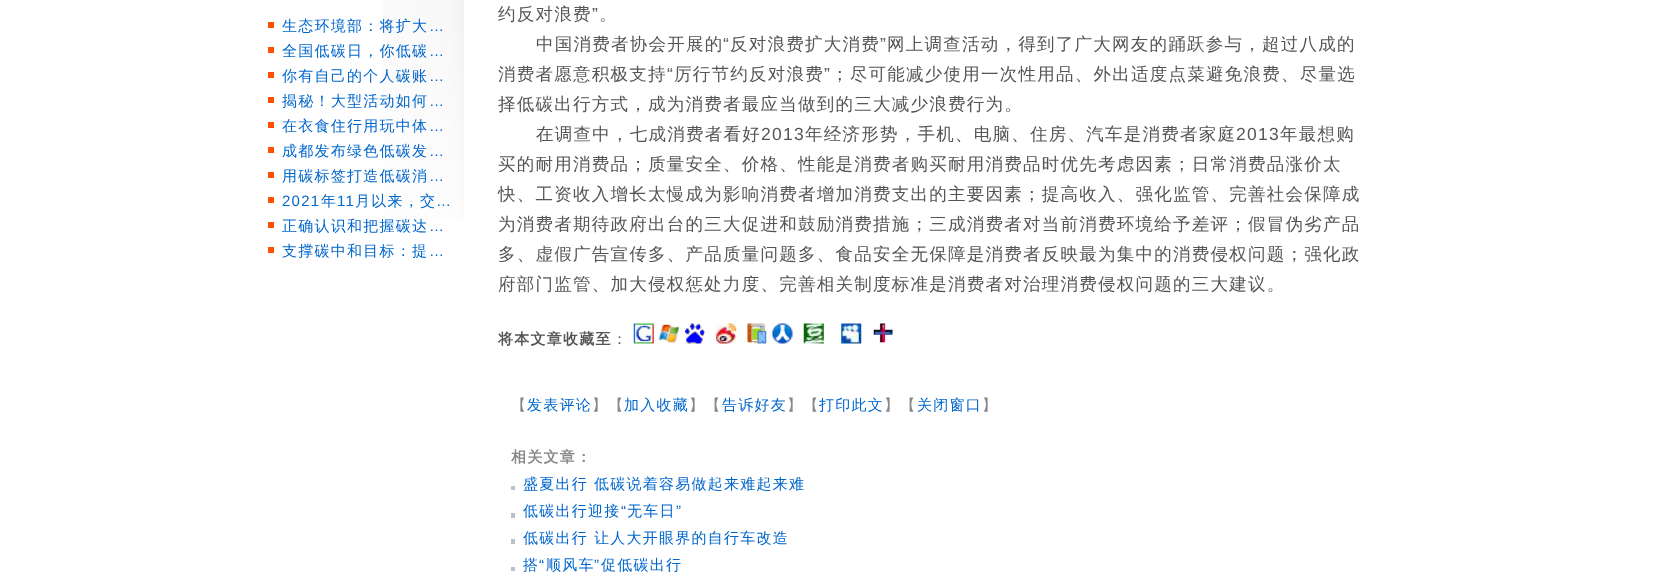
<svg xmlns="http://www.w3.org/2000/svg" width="1656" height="576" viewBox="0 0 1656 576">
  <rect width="100%" height="100%" fill="rgb(255,255,255)"/>
  <image x="383" y="0" width="81" height="219" href="pic1.png"/>
  <rect x="268" y="22" width="6" height="6" fill="rgb(255,79,0)"/>
  <text x="282" y="31" font-family="WenQuanYi Zen Hei" font-size="15" font-weight="500" letter-spacing="1.25" fill="rgb(0,102,204)">生态环境部：将扩大</text>
  <text x="429" y="31" font-family="Liberation Sans" font-size="15" letter-spacing="1.25" fill="rgb(0,102,204)">…</text>
  <rect x="268" y="47" width="6" height="6" fill="rgb(255,79,0)"/>
  <text x="282" y="56" font-family="WenQuanYi Zen Hei" font-size="15" font-weight="500" letter-spacing="1.25" fill="rgb(0,102,204)">全国低碳日，你低碳</text>
  <text x="429" y="56" font-family="Liberation Sans" font-size="15" letter-spacing="1.25" fill="rgb(0,102,204)">…</text>
  <rect x="268" y="72" width="6" height="6" fill="rgb(255,79,0)"/>
  <text x="282" y="81" font-family="WenQuanYi Zen Hei" font-size="15" font-weight="500" letter-spacing="1.25" fill="rgb(0,102,204)">你有自己的个人碳账</text>
  <text x="429" y="81" font-family="Liberation Sans" font-size="15" letter-spacing="1.25" fill="rgb(0,102,204)">…</text>
  <rect x="268" y="97" width="6" height="6" fill="rgb(255,79,0)"/>
  <text x="282" y="106" font-family="WenQuanYi Zen Hei" font-size="15" font-weight="500" letter-spacing="1.25" fill="rgb(0,102,204)">揭秘！大型活动如何</text>
  <text x="429" y="106" font-family="Liberation Sans" font-size="15" letter-spacing="1.25" fill="rgb(0,102,204)">…</text>
  <rect x="268" y="122" width="6" height="6" fill="rgb(255,79,0)"/>
  <text x="282" y="131" font-family="WenQuanYi Zen Hei" font-size="15" font-weight="500" letter-spacing="1.25" fill="rgb(0,102,204)">在衣食住行用玩中体</text>
  <text x="429" y="131" font-family="Liberation Sans" font-size="15" letter-spacing="1.25" fill="rgb(0,102,204)">…</text>
  <rect x="268" y="147" width="6" height="6" fill="rgb(255,79,0)"/>
  <text x="282" y="156" font-family="WenQuanYi Zen Hei" font-size="15" font-weight="500" letter-spacing="1.25" fill="rgb(0,102,204)">成都发布绿色低碳发</text>
  <text x="429" y="156" font-family="Liberation Sans" font-size="15" letter-spacing="1.25" fill="rgb(0,102,204)">…</text>
  <rect x="268" y="172" width="6" height="6" fill="rgb(255,79,0)"/>
  <text x="282" y="181" font-family="WenQuanYi Zen Hei" font-size="15" font-weight="500" letter-spacing="1.25" fill="rgb(0,102,204)">用碳标签打造低碳消</text>
  <text x="429" y="181" font-family="Liberation Sans" font-size="15" letter-spacing="1.25" fill="rgb(0,102,204)">…</text>
  <rect x="268" y="197" width="6" height="6" fill="rgb(255,79,0)"/>
  <text x="282" y="206" font-family="Liberation Sans" font-size="15" letter-spacing="1.25" fill="rgb(0,102,204)">2021</text>
  <text x="321" y="206" font-family="WenQuanYi Zen Hei" font-size="15" font-weight="500" letter-spacing="1.25" fill="rgb(0,102,204)">年</text>
  <text x="337" y="206" font-family="Liberation Sans" font-size="15" letter-spacing="1.25" fill="rgb(0,102,204)">11</text>
  <text x="355" y="206" font-family="WenQuanYi Zen Hei" font-size="15" font-weight="500" letter-spacing="1.25" fill="rgb(0,102,204)">月以来，交</text>
  <text x="436" y="206" font-family="Liberation Sans" font-size="15" letter-spacing="1.25" fill="rgb(0,102,204)">…</text>
  <rect x="268" y="222" width="6" height="6" fill="rgb(255,79,0)"/>
  <text x="282" y="231" font-family="WenQuanYi Zen Hei" font-size="15" font-weight="500" letter-spacing="1.25" fill="rgb(0,102,204)">正确认识和把握碳达</text>
  <text x="429" y="231" font-family="Liberation Sans" font-size="15" letter-spacing="1.25" fill="rgb(0,102,204)">…</text>
  <rect x="268" y="247" width="6" height="6" fill="rgb(255,79,0)"/>
  <text x="282" y="256" font-family="WenQuanYi Zen Hei" font-size="15" font-weight="500" letter-spacing="1.25" fill="rgb(0,102,204)">支撑碳中和目标：提</text>
  <text x="429" y="256" font-family="Liberation Sans" font-size="15" letter-spacing="1.25" fill="rgb(0,102,204)">…</text>
  <text x="498" y="20" font-family="WenQuanYi Zen Hei" font-size="17.5" font-weight="500" letter-spacing="1.25" fill="rgb(85,85,85)">约反对浪费</text>
  <text x="592" y="20" font-family="Liberation Sans" font-size="17.5" letter-spacing="1.25" fill="rgb(85,85,85)">”</text>
  <g font-family="WenQuanYi Zen Hei" font-size="17.5" font-weight="500" letter-spacing="1.25" fill="rgb(85,85,85)">
    <text x="599" y="20">。</text>
    <text x="536" y="50">中国消费者协会开展的</text>
  </g>
  <text x="723" y="50" font-family="Liberation Sans" font-size="17.5" letter-spacing="1.25" fill="rgb(85,85,85)">“</text>
  <text x="730" y="50" font-family="WenQuanYi Zen Hei" font-size="17.5" font-weight="500" letter-spacing="1.25" fill="rgb(85,85,85)">反对浪费扩大消费</text>
  <text x="880" y="50" font-family="Liberation Sans" font-size="17.5" letter-spacing="1.25" fill="rgb(85,85,85)">”</text>
  <g font-family="WenQuanYi Zen Hei" font-size="17.5" font-weight="500" letter-spacing="1.25" fill="rgb(85,85,85)">
    <text x="887" y="50">网上调查活动，得到了广大网友的踊跃参与，超过八成的</text>
    <text x="498" y="80">消费者愿意积极支持</text>
  </g>
  <text x="667" y="80" font-family="Liberation Sans" font-size="17.5" letter-spacing="1.25" fill="rgb(85,85,85)">“</text>
  <text x="674" y="80" font-family="WenQuanYi Zen Hei" font-size="17.5" font-weight="500" letter-spacing="1.25" fill="rgb(85,85,85)">厉行节约反对浪费</text>
  <text x="824" y="80" font-family="Liberation Sans" font-size="17.5" letter-spacing="1.25" fill="rgb(85,85,85)">”</text>
  <g font-family="WenQuanYi Zen Hei" font-size="17.5" font-weight="500" letter-spacing="1.25" fill="rgb(85,85,85)">
    <text x="831" y="80">；尽可能减少使用一次性用品、外出适度点菜避免浪费、尽量选</text>
    <text x="498" y="110">择低碳出行方式，成为消费者最应当做到的三大减少浪费行为。</text>
    <text x="536" y="140">在调查中，七成消费者看好</text>
  </g>
  <text x="761" y="140" font-family="Liberation Sans" font-size="17.5" letter-spacing="1.25" fill="rgb(85,85,85)">2013</text>
  <text x="805" y="140" font-family="WenQuanYi Zen Hei" font-size="17.5" font-weight="500" letter-spacing="1.25" fill="rgb(85,85,85)">年经济形势，手机、电脑、住房、汽车是消费者家庭</text>
  <text x="1236" y="140" font-family="Liberation Sans" font-size="17.5" letter-spacing="1.25" fill="rgb(85,85,85)">2013</text>
  <g font-family="WenQuanYi Zen Hei" font-size="17.5" font-weight="500" letter-spacing="1.25" fill="rgb(85,85,85)">
    <text x="1280" y="140">年最想购</text>
    <text>
      <tspan x="498" y="170">买的耐用消费品；质量安全、价格、性能是消费者购买耐用消费品时优先考虑因素；日常消费品涨价太</tspan>
      <tspan x="498" y="200">快、工资收入增长太慢成为影响消费者增加消费支出的主要因素；提高收入、强化监管、完善社会保障成</tspan>
      <tspan x="498" y="230">为消费者期待政府出台的三大促进和鼓励消费措施；三成消费者对当前消费环境给予差评；假冒伪劣产品</tspan>
      <tspan x="498" y="260">多、虚假广告宣传多、产品质量问题多、食品安全无保障是消费者反映最为集中的消费侵权问题；强化政</tspan>
      <tspan x="498" y="290">府部门监管、加大侵权惩处力度、完善相关制度标准是消费者对治理消费侵权问题的三大建议。</tspan>
    </text>
  </g>
  <text x="498" y="344" font-family="WenQuanYi Zen Hei" font-size="15" font-weight="bold" letter-spacing="1.25" fill="rgb(85,85,85)">将本文章收藏至</text>
  <text x="612" y="344" font-family="WenQuanYi Zen Hei" font-size="15" font-weight="500" letter-spacing="1.25" fill="rgb(85,85,85)">：</text>
  <image x="633" y="323" width="21" height="21" href="pic2.png"/>
  <image x="658" y="324" width="21" height="19" href="pic3.png"/>
  <image x="685" y="323" width="20" height="21" href="pic4.png"/>
  <image x="716" y="323" width="21" height="21" href="pic5.png"/>
  <image x="747" y="323" width="20" height="21" href="pic6.png"/>
  <image x="772" y="323" width="21" height="21" href="pic7.png"/>
  <image x="803" y="323" width="21" height="21" href="pic8.png"/>
  <image x="841" y="323" width="21" height="21" href="pic9.png"/>
  <image x="873" y="323" width="20" height="20" href="pic10.png"/>
  <text x="511" y="410" font-family="WenQuanYi Zen Hei" font-size="15" font-weight="500" letter-spacing="1.25" fill="rgb(136,136,136)">【</text>
  <text x="527" y="410" font-family="WenQuanYi Zen Hei" font-size="15" font-weight="500" letter-spacing="1.25" fill="rgb(0,102,204)">发表评论</text>
  <text x="592" y="410" font-family="WenQuanYi Zen Hei" font-size="15" font-weight="500" letter-spacing="1.25" fill="rgb(136,136,136)">】【</text>
  <text x="624" y="410" font-family="WenQuanYi Zen Hei" font-size="15" font-weight="500" letter-spacing="1.25" fill="rgb(0,102,204)">加入收藏</text>
  <text x="689" y="410" font-family="WenQuanYi Zen Hei" font-size="15" font-weight="500" letter-spacing="1.25" fill="rgb(136,136,136)">】【</text>
  <text x="722" y="410" font-family="WenQuanYi Zen Hei" font-size="15" font-weight="500" letter-spacing="1.25" fill="rgb(0,102,204)">告诉好友</text>
  <text x="787" y="410" font-family="WenQuanYi Zen Hei" font-size="15" font-weight="500" letter-spacing="1.25" fill="rgb(136,136,136)">】【</text>
  <text x="819" y="410" font-family="WenQuanYi Zen Hei" font-size="15" font-weight="500" letter-spacing="1.25" fill="rgb(0,102,204)">打印此文</text>
  <text x="884" y="410" font-family="WenQuanYi Zen Hei" font-size="15" font-weight="500" letter-spacing="1.25" fill="rgb(136,136,136)">】【</text>
  <text x="917" y="410" font-family="WenQuanYi Zen Hei" font-size="15" font-weight="500" letter-spacing="1.25" fill="rgb(0,102,204)">关闭窗口</text>
  <text x="982" y="410" font-family="WenQuanYi Zen Hei" font-size="15" font-weight="500" letter-spacing="1.25" fill="rgb(136,136,136)">】</text>
  <text x="511" y="462" font-family="WenQuanYi Zen Hei" font-size="15" font-weight="bold" letter-spacing="1.25" fill="rgb(136,136,136)">相关文章：</text>
  <text x="523" y="489" font-family="WenQuanYi Zen Hei" font-size="15" font-weight="500" letter-spacing="1.25" fill="rgb(0,102,204)">盛夏出行</text>
  <rect x="511" y="486" width="4" height="4" fill="rgb(186,194,201)"/>
  <g font-family="WenQuanYi Zen Hei" font-size="15" font-weight="500" letter-spacing="1.25" fill="rgb(0,102,204)">
    <text x="594" y="489">低碳说着容易做起来难起来难</text>
    <text x="523" y="516">低碳出行迎接</text>
  </g>
  <rect x="511" y="513" width="4" height="5" fill="rgb(186,194,201)"/>
  <text x="621" y="516" font-family="Liberation Sans" font-size="15" letter-spacing="1.25" fill="rgb(0,102,204)">“</text>
  <text x="627" y="516" font-family="WenQuanYi Zen Hei" font-size="15" font-weight="500" letter-spacing="1.25" fill="rgb(0,102,204)">无车日</text>
  <text x="676" y="516" font-family="Liberation Sans" font-size="15" letter-spacing="1.25" fill="rgb(0,102,204)">”</text>
  <text x="523" y="543" font-family="WenQuanYi Zen Hei" font-size="15" font-weight="500" letter-spacing="1.25" fill="rgb(0,102,204)">低碳出行</text>
  <rect x="511" y="539" width="4" height="5" fill="rgb(186,194,201)"/>
  <g font-family="WenQuanYi Zen Hei" font-size="15" font-weight="500" letter-spacing="1.25" fill="rgb(0,102,204)">
    <text x="594" y="543">让人大开眼界的自行车改造</text>
    <text x="523" y="570">搭</text>
  </g>
  <rect x="511" y="567" width="4" height="4" fill="rgb(186,194,201)"/>
  <text x="539" y="570" font-family="Liberation Sans" font-size="15" letter-spacing="1.25" fill="rgb(0,102,204)">“</text>
  <text x="546" y="570" font-family="WenQuanYi Zen Hei" font-size="15" font-weight="500" letter-spacing="1.25" fill="rgb(0,102,204)">顺风车</text>
  <text x="594" y="570" font-family="Liberation Sans" font-size="15" letter-spacing="1.25" fill="rgb(0,102,204)">”</text>
  <text x="601" y="570" font-family="WenQuanYi Zen Hei" font-size="15" font-weight="500" letter-spacing="1.25" fill="rgb(0,102,204)">促低碳出行</text>
</svg>
